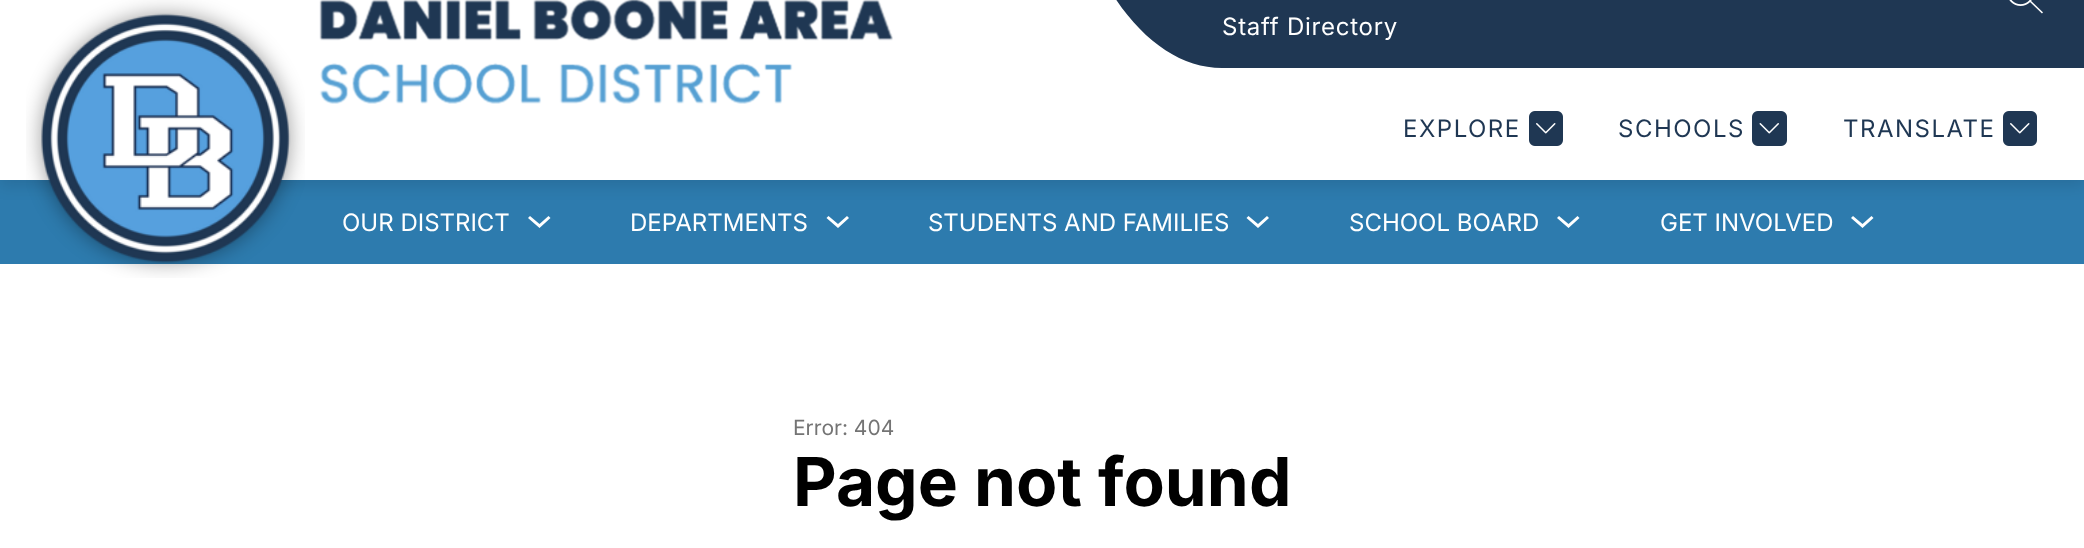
<svg xmlns="http://www.w3.org/2000/svg" width="2084" height="548" viewBox="0 0 2084 548">
  <rect width="100%" height="100%" fill="rgb(255,255,255)"/>
  <rect x="0" y="180" width="2084" height="84" fill="rgb(45,123,174)"/>
  <rect x="0" y="-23" width="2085" height="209" fill="rgba(0,0,0,0.1)" filter="blur(7.5px)"/>
  <rect x="0" y="0" width="2084" height="180" fill="rgb(255,255,255)"/>
  <image x="26" y="0" width="279" height="278" href="pic1.png"/>
  <image x="319" y="0" width="574" height="104" href="pic2.png"/>
  <rect x="1226" y="0" width="858" height="68" fill="rgb(31,55,83)"/>
  <path d="M1222 68H1226V-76H1082C1080-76 1080-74 1080-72L1090-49C1121 24 1170 68 1222 68Z" fill="rgb(31,55,83)"/>
  <image x="2009" y="0" width="34" height="14" href="pic3.png"/>
  <text x="1222" y="35" font-family="Inter" font-size="24" letter-spacing="0.75" fill="rgb(255,255,255)">Staff Directory</text>
  <text x="1403" y="137" font-family="Inter" font-size="24" letter-spacing="1.5" fill="rgb(31,55,83)">EXPLORE</text>
  <image x="1529" y="111" width="34" height="35" href="pic4.png"/>
  <text x="1618" y="137" font-family="Inter" font-size="24" letter-spacing="1.5" fill="rgb(31,55,83)">SCHOOLS</text>
  <image x="1752" y="111" width="35" height="35" href="pic5.png"/>
  <text x="1843" y="137" font-family="Inter" font-size="24" letter-spacing="1.5" fill="rgb(31,55,83)">TRANSLATE</text>
  <image x="2003" y="111" width="34" height="35" href="pic4.png"/>
  <text x="342" y="231" font-family="Inter" font-size="24" fill="rgb(255,255,255)">OUR DISTRICT</text>
  <path d="M548.5 216L539.5 224L530 216L528 218L539.5 228L550.5 218Z" fill="rgb(255,255,255)" fill-rule="evenodd"/>
  <text x="630" y="231" font-family="Inter" font-size="24" fill="rgb(255,255,255)">DEPARTMENTS</text>
  <path d="M847 216L838 224L828.5 216L826.5 218L838 228L849 218Z" fill="rgb(255,255,255)" fill-rule="evenodd"/>
  <text x="928" y="231" font-family="Inter" font-size="24" fill="rgb(255,255,255)">STUDENTS AND FAMILIES</text>
  <path d="M1267 216L1258 224L1248.5 216L1246.5 218L1258 228L1269 218Z" fill="rgb(255,255,255)" fill-rule="evenodd"/>
  <text x="1349" y="231" font-family="Inter" font-size="24" fill="rgb(255,255,255)">SCHOOL BOARD</text>
  <path d="M1577.5 216L1568.5 224L1559 216L1557 218L1568.5 228L1579.5 218Z" fill="rgb(255,255,255)" fill-rule="evenodd"/>
  <text x="1660" y="231" font-family="Inter" font-size="24" fill="rgb(255,255,255)">GET INVOLVED</text>
  <path d="M1871.5 216L1862.5 224L1853 216L1851 218L1862.5 228L1873.5 218Z" fill="rgb(255,255,255)" fill-rule="evenodd"/>
  <text x="793" y="435" font-family="Inter" font-size="21" fill="rgb(116,116,116)">Error: 404</text>
  <text x="793" y="506" font-family="Inter" font-size="67.5" font-weight="bold" fill="rgb(0,0,0)">Page not found</text>
</svg>
